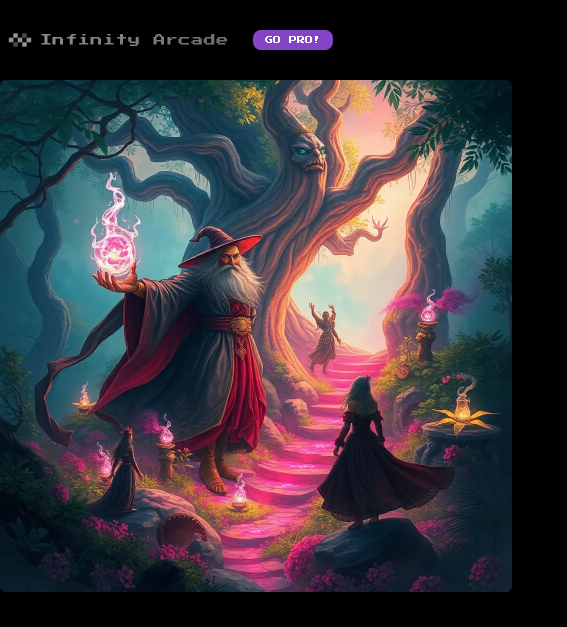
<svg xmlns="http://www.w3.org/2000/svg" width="567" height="627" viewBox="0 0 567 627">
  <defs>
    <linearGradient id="g1" gradientUnits="userSpaceOnUse" x1="123" y1="-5.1" x2="146" y2="85"><stop offset="0" stop-color="rgb(153,153,153)"/><stop offset="1" stop-color="rgb(94,98,105)"/></linearGradient>
  </defs>
  <rect width="100%" height="100%" fill="rgb(0,0,0)"/>
  <image x="8" y="32" width="24" height="16" href="pic1.png"/>
  <text x="40" y="46" font-family="'Press Start 2P'" font-size="12" letter-spacing="0.6" fill="url(#g1)">Infinity Arcade</text>
  <rect x="253" y="30" width="80" height="20" rx="8" fill="rgb(134,68,198)"/>
  <text x="265" y="44" font-family="'Press Start 2P'" font-size="8" fill="rgb(255,255,255)">GO PRO!</text>
  <image x="0" y="80" width="512" height="512" href="pic2.png"/>
</svg>
